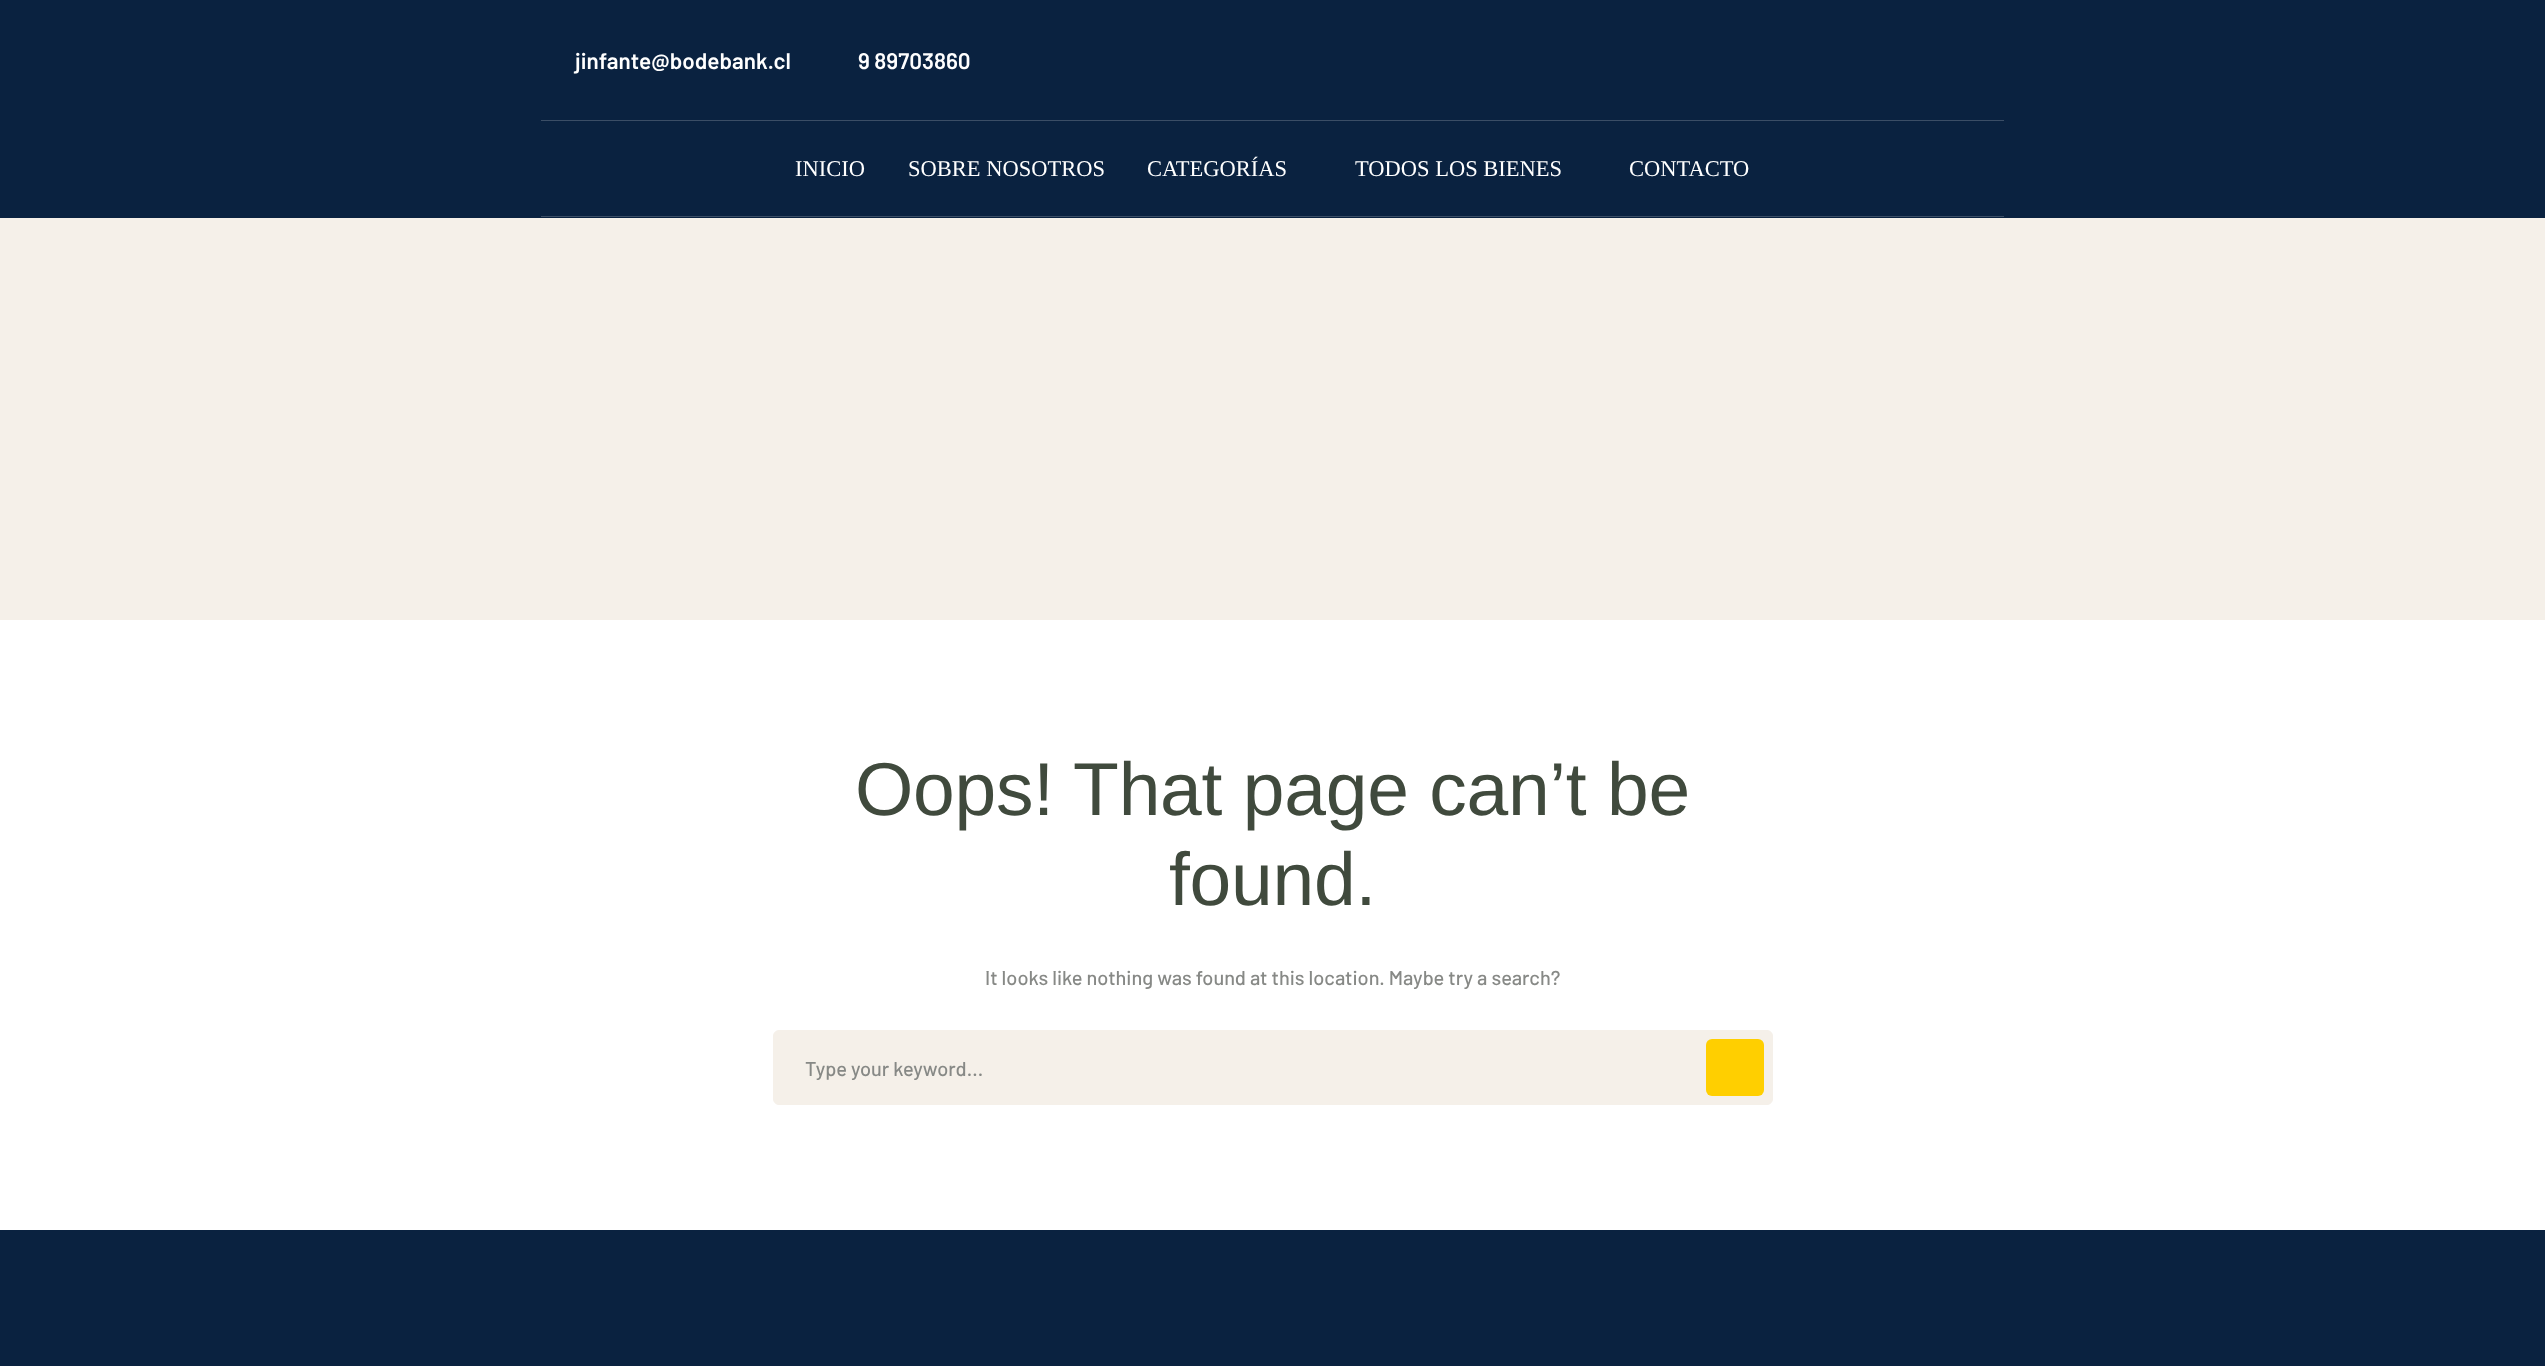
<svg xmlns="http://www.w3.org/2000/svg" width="2545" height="1366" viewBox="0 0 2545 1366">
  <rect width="100%" height="100%" fill="rgb(255,255,255)"/>
  <rect x="0" y="0" width="2545" height="218" fill="rgb(10,34,64)"/>
  <g font-family="Barlow" font-size="22.5" font-weight="600" fill="rgb(255,255,255)">
    <text x="575" y="69">jinfante@bodebank.cl</text>
    <text x="858" y="69">9 89703860</text>
  </g>
  <rect x="541" y="120" width="1463" height="1" fill="rgb(59,78,102)"/>
  <rect x="541" y="216" width="1463" height="1" fill="rgb(59,78,102)"/>
  <g font-family="Liberation Serif" font-size="22.5" fill="rgb(255,255,255)">
    <text x="795" y="176">INICIO</text>
    <text x="908" y="176">SOBRE NOSOTROS</text>
    <text x="1147" y="176">CATEGORÍAS</text>
    <text x="1355" y="176">TODOS LOS BIENES</text>
    <text x="1629" y="176">CONTACTO</text>
  </g>
  <rect x="0" y="218" width="2545" height="402" fill="rgb(245,240,233)"/>
  <g font-family="Liberation Sans" font-size="75" letter-spacing="-0.25" fill="rgb(64,74,61)">
    <text x="855" y="815">Oops! That page can’t be</text>
    <text x="1169" y="905">found.</text>
  </g>
  <text x="985" y="985" font-family="Barlow" font-size="20" font-weight="500" fill="rgb(135,137,134)">It looks like nothing was found at this location. Maybe try a search?</text>
  <rect x="773.5" y="1030.5" width="999" height="74" rx="5.5" fill="rgb(245,240,233)" stroke="rgb(245,240,233)"/>
  <text x="805" y="1076" font-family="Barlow" font-size="20" font-weight="500" fill="rgb(135,137,134)">Type your keyword...</text>
  <rect x="1706" y="1039" width="58" height="57" rx="6" fill="rgb(255,207,0)"/>
  <rect x="0" y="1230" width="2545" height="136" fill="rgb(10,34,64)"/>
</svg>
